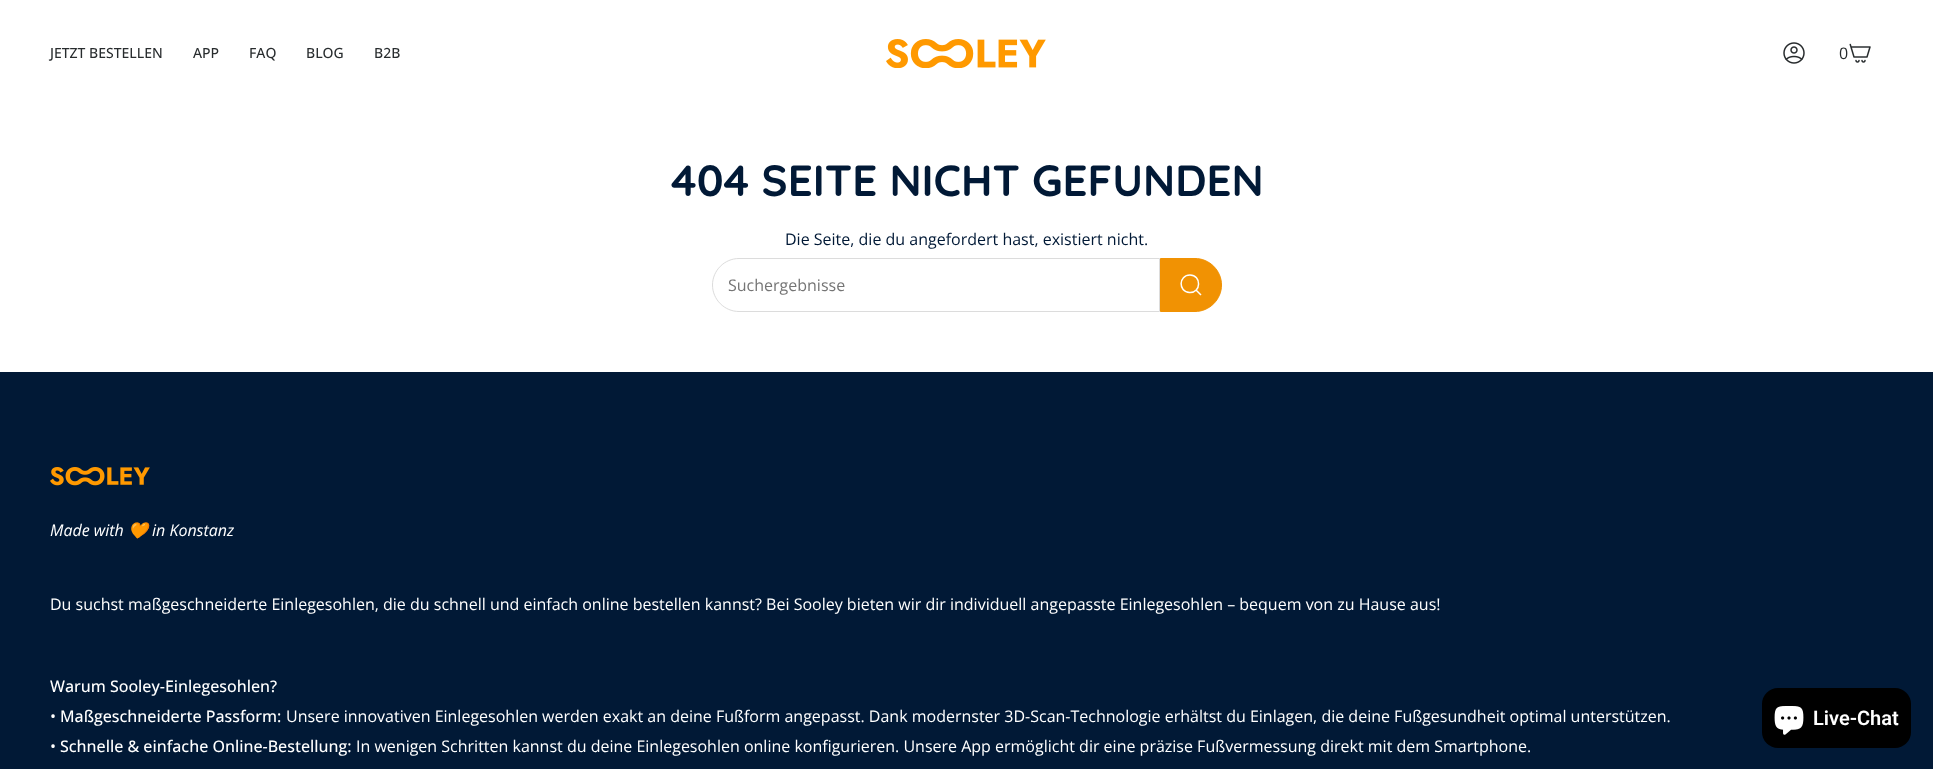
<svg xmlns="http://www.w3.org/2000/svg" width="1933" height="769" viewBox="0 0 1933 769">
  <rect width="100%" height="100%" fill="rgb(255,255,255)"/>
  <g font-family="Open Sans" font-size="14" font-weight="500" fill="rgb(40,44,46)">
    <text x="50" y="58">JETZT BESTELLEN</text>
    <text x="193" y="58">APP</text>
    <text x="249" y="58">FAQ</text>
    <text x="306" y="58">BLOG</text>
    <text x="374" y="58">B2B</text>
  </g>
  <image x="886" y="39" width="160" height="29" href="pic1.png"/>
  <image x="1783" y="42" width="22" height="22" href="pic2.png"/>
  <text x="1839" y="59" font-family="Open Sans" font-size="16" fill="rgb(40,44,46)">0</text>
  <image x="1849" y="43" width="22" height="20" href="pic3.png"/>
  <text x="671" y="196" font-family="Quicksand" font-size="43.75" font-weight="bold" fill="rgb(1,25,54)">404 SEITE NICHT GEFUNDEN</text>
  <text x="785" y="245" font-family="Open Sans" font-size="16" fill="rgb(1,25,54)">Die Seite, die du angefordert hast, existiert nicht.</text>
  <path d="M739 258.5H1159.5V311.5H739C724.5 311.5 712.5 299.5 712.5 285C712.5 270.5 724.5 258.5 739 258.5Z" fill="none" stroke="rgb(220,220,220)"/>
  <text x="728" y="291" font-family="Open Sans" font-size="16" fill="rgb(117,117,117)">Suchergebnisse</text>
  <path d="M1160.5 258.5H1195C1209.5 258.5 1221.5 270.5 1221.5 285C1221.5 299.5 1209.5 311.5 1195 311.5H1160.5Z" fill="rgb(241,146,3)" stroke="rgb(241,146,3)"/>
  <path d="M1190 275C1201.5 275 1201.5 293 1189.5 292.5C1178 292 1178.5 275 1190 275ZM1196 290L1201 295" fill="none" stroke="rgb(255,255,255)" stroke-width="1.5"/>
  <rect x="0" y="372" width="1933" height="397" fill="rgb(1,25,54)"/>
  <image x="50" y="467" width="100" height="19" href="pic4.png"/>
  <text x="50" y="536" font-family="Open Sans" font-size="16" font-style="italic" fill="rgb(255,255,255)">Made with</text>
  <text x="128" y="536" font-family="Noto Color Emoji" font-size="16" font-style="italic" fill="rgb(255,255,255)">🧡</text>
  <text x="152" y="536" font-family="Open Sans" font-size="16" font-style="italic" fill="rgb(255,255,255)">in Konstanz</text>
  <text x="50" y="610" font-family="Open Sans" font-size="16" fill="rgb(255,255,255)">Du suchst maßgeschneiderte Einlegesohlen, die du schnell und einfach online bestellen kannst? Bei Sooley bieten wir dir individuell angepasste Einlegesohlen – bequem von zu Hause aus!</text>
  <text x="50" y="692" font-family="Open Sans" font-size="16" font-weight="500" fill="rgb(255,255,255)">Warum Sooley-Einlegesohlen?</text>
  <text x="50" y="722" font-family="Open Sans" font-size="16" fill="rgb(255,255,255)">•</text>
  <text x="60" y="722" font-family="Open Sans" font-size="16" font-weight="500" fill="rgb(255,255,255)">Maßgeschneiderte Passform:</text>
  <g font-family="Open Sans" font-size="16" fill="rgb(255,255,255)">
    <text x="286" y="722">Unsere innovativen Einlegesohlen werden exakt an deine Fußform angepasst. Dank modernster 3D-Scan-Technologie erhältst du Einlagen, die deine Fußgesundheit optimal unterstützen.</text>
    <text x="50" y="752">•</text>
  </g>
  <text x="60" y="752" font-family="Open Sans" font-size="16" font-weight="500" fill="rgb(255,255,255)">Schnelle &amp; einfache Online-Bestellung:</text>
  <text x="356" y="752" font-family="Open Sans" font-size="16" fill="rgb(255,255,255)">In wenigen Schritten kannst du deine Einlegesohlen online konfigurieren. Unsere App ermöglicht dir eine präzise Fußvermessung direkt mit dem Smartphone.</text>
  <rect x="1762" y="688" width="149" height="60" rx="16" fill="rgb(0,0,0)"/>
  <image x="1774" y="706" width="30" height="29" href="pic5.png"/>
  <text x="1813" y="725" font-family="Roboto" font-size="20" font-weight="600" fill="rgb(255,255,255)">Live-Chat</text>
</svg>
